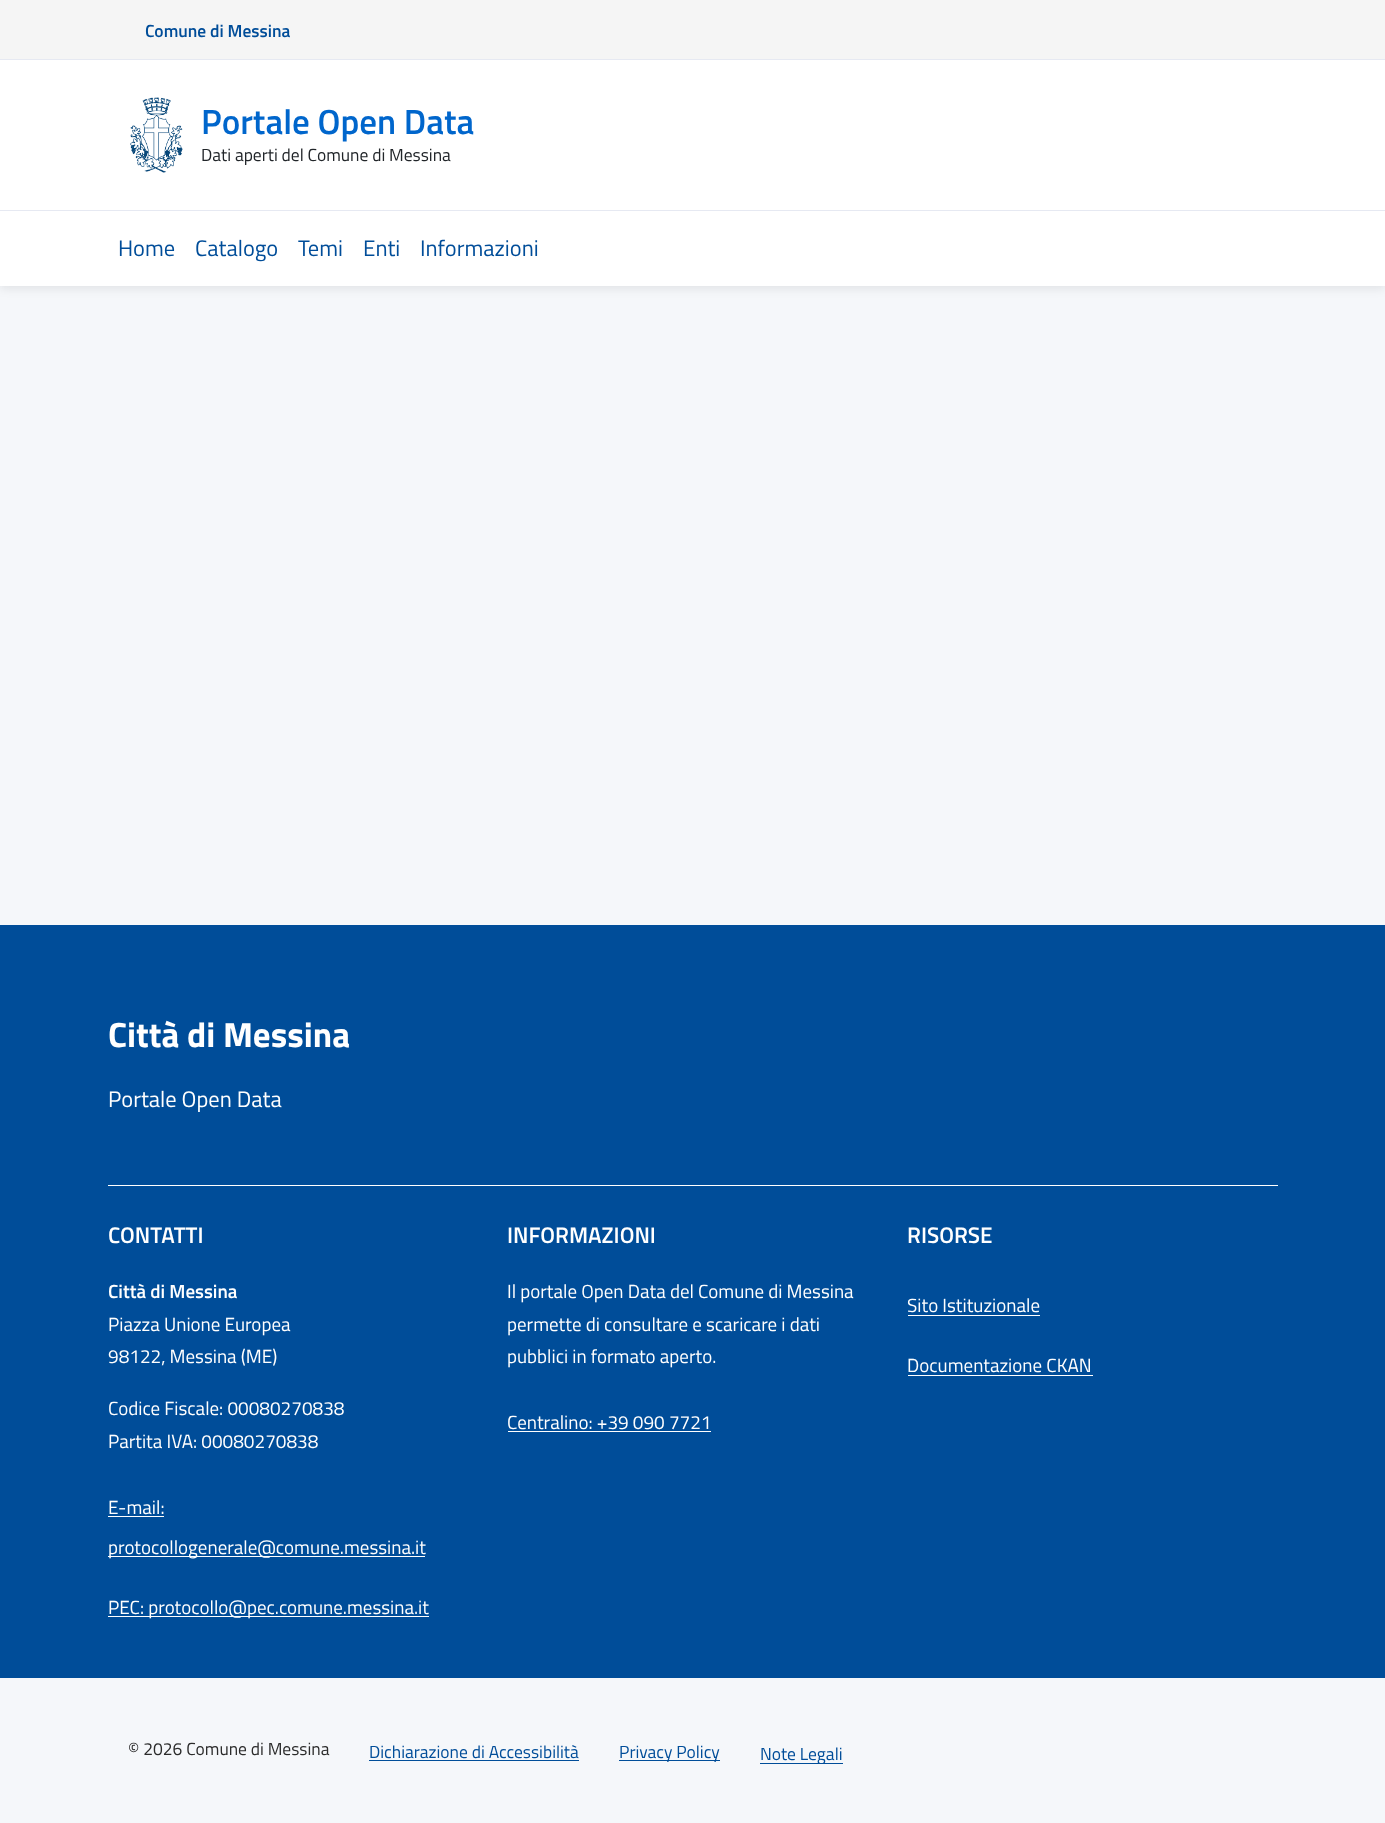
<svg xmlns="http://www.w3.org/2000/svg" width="1385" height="1823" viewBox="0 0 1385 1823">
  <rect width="100%" height="100%" fill="rgb(245,247,250)"/>
  <rect x="0" y="3" width="1385" height="286" fill="rgba(0,0,0,0.08)" filter="blur(5px)"/>
  <rect x="0" y="0" width="1385" height="59" fill="rgb(245,245,245)"/>
  <rect x="0" y="59" width="1385" height="1" fill="rgb(230,233,242)"/>
  <text x="145" y="37" font-family="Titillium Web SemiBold" font-size="17.5" font-weight="600" fill="rgb(0,77,153)">Comune di Messina</text>
  <rect x="0" y="60" width="1385" height="150" fill="rgb(255,255,255)"/>
  <image x="130" y="97" width="53" height="76" href="pic1.png"/>
  <text x="201" y="134" font-family="Titillium Web SemiBold" font-size="35" font-weight="600" fill="rgb(0,102,204)">Portale Open Data</text>
  <text x="201" y="161" font-family="Titillium Web" font-size="17.5" fill="rgb(33,37,41)">Dati aperti del Comune di Messina</text>
  <rect x="0" y="211" width="1385" height="75" fill="rgb(255,255,255)"/>
  <rect x="0" y="210" width="1385" height="1" fill="rgb(230,233,242)"/>
  <g font-family="Titillium Web" font-size="22.5" fill="rgb(0,77,153)">
    <text x="118" y="256">Home</text>
    <text x="195" y="256">Catalogo</text>
    <text x="298" y="256">Temi</text>
    <text x="363" y="256">Enti</text>
    <text x="420" y="256">Informazioni</text>
  </g>
  <rect x="0" y="925" width="1385" height="753" fill="rgb(0,77,153)"/>
  <text x="108" y="1047" font-family="Titillium Web" font-size="35" font-weight="bold" fill="rgb(255,255,255)">Città di Messina</text>
  <text x="108" y="1107" font-family="Titillium Web" font-size="22.5" fill="rgb(255,255,255)">Portale Open Data</text>
  <rect x="108" y="1185" width="1170" height="1" fill="rgb(255,255,255)"/>
  <text x="108" y="1243" font-family="Titillium Web SemiBold" font-size="22.5" font-weight="600" fill="rgb(255,255,255)">CONTATTI</text>
  <text x="108" y="1298" font-family="Titillium Web SemiBold" font-size="19" font-weight="600" fill="rgb(255,255,255)">Città di Messina</text>
  <g font-family="Titillium Web" font-size="19" fill="rgb(255,255,255)">
    <text>
      <tspan x="108" y="1331">Piazza Unione Europea</tspan>
      <tspan x="108" y="1363">98122, Messina (ME)</tspan>
    </text>
    <text>
      <tspan x="108" y="1415">Codice Fiscale: 00080270838</tspan>
      <tspan x="108" y="1448">Partita IVA: 00080270838</tspan>
    </text>
    <text x="108" y="1514">E-mail:</text>
  </g>
  <rect x="108" y="1516" width="56" height="1" fill="rgb(255,255,255)"/>
  <rect x="108" y="1556" width="317" height="1" fill="rgb(255,255,255)"/>
  <text x="108" y="1554" font-family="Titillium Web" font-size="19" fill="rgb(255,255,255)">protocollogenerale@comune.messina.it</text>
  <rect x="108" y="1616" width="321" height="1" fill="rgb(255,255,255)"/>
  <text x="108" y="1614" font-family="Titillium Web" font-size="19" fill="rgb(255,255,255)">PEC: protocollo@pec.comune.messina.it</text>
  <text x="507" y="1243" font-family="Titillium Web SemiBold" font-size="22.5" font-weight="600" fill="rgb(255,255,255)">INFORMAZIONI</text>
  <g font-family="Titillium Web" font-size="19" fill="rgb(255,255,255)">
    <text>
      <tspan x="507" y="1298">Il portale Open Data del Comune di Messina</tspan>
      <tspan x="507" y="1331">permette di consultare e scaricare i dati</tspan>
      <tspan x="507" y="1363">pubblici in formato aperto.</tspan>
    </text>
    <text x="507" y="1429">Centralino: +39 090 7721</text>
  </g>
  <rect x="508" y="1431" width="203" height="1" fill="rgb(255,255,255)"/>
  <text x="907" y="1243" font-family="Titillium Web SemiBold" font-size="22.5" font-weight="600" fill="rgb(255,255,255)">RISORSE</text>
  <text x="907" y="1312" font-family="Titillium Web" font-size="19" fill="rgb(255,255,255)">Sito Istituzionale</text>
  <rect x="908" y="1315" width="132" height="1" fill="rgb(255,255,255)"/>
  <text x="907" y="1372" font-family="Titillium Web" font-size="19" fill="rgb(255,255,255)">Documentazione CKAN</text>
  <rect x="908" y="1375" width="185" height="1" fill="rgb(255,255,255)"/>
  <text x="128" y="1755" font-family="Titillium Web" font-size="17.5" fill="rgb(43,43,43)">© 2026 Comune di Messina</text>
  <text x="369" y="1758" font-family="Titillium Web" font-size="17.5" fill="rgb(0,77,153)">Dichiarazione di Accessibilità</text>
  <rect x="369" y="1760" width="210" height="1" fill="rgb(0,77,153)"/>
  <rect x="619" y="1760" width="101" height="1" fill="rgb(0,77,153)"/>
  <text x="619" y="1758" font-family="Titillium Web" font-size="17.5" fill="rgb(0,77,153)">Privacy Policy</text>
  <rect x="760" y="1763" width="83" height="1" fill="rgb(0,77,153)"/>
  <text x="760" y="1760" font-family="Titillium Web" font-size="17.5" fill="rgb(0,77,153)">Note Legali</text>
</svg>
